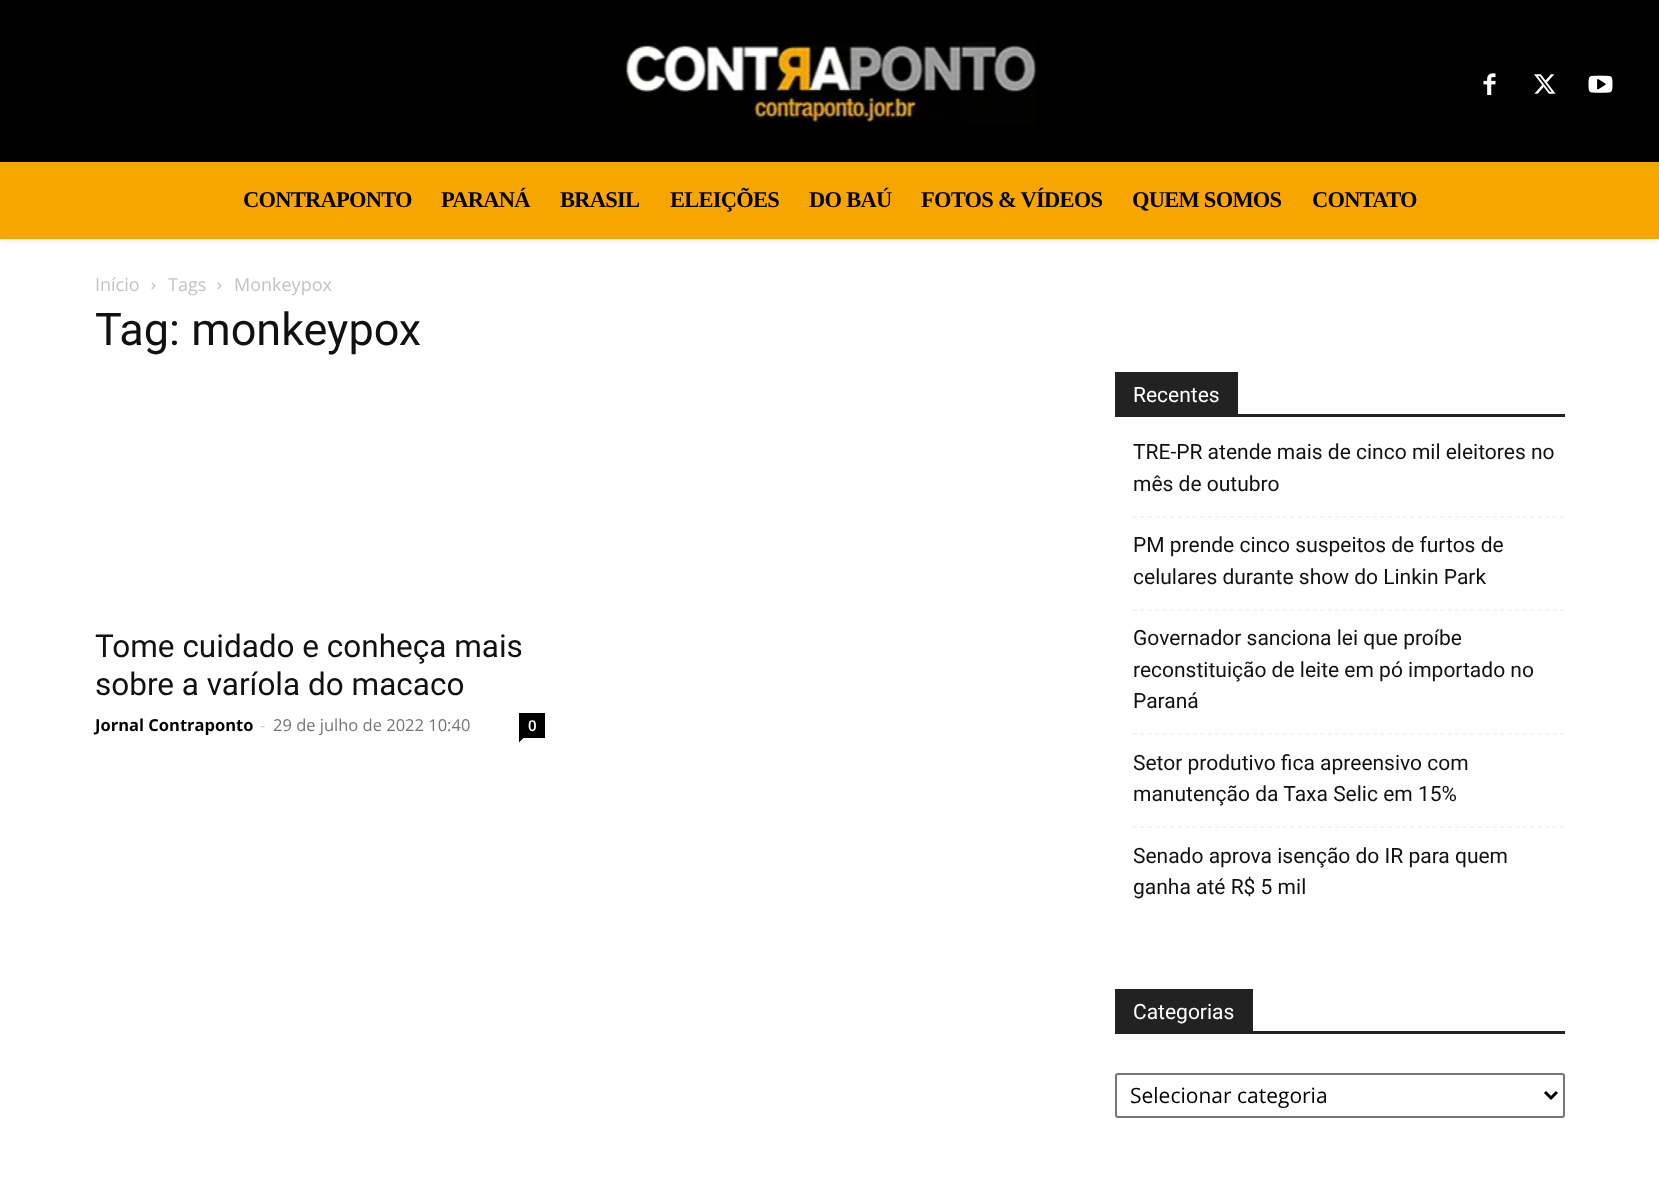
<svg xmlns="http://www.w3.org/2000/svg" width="1659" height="1182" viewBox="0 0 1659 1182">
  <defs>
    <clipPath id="clip1"><path d="M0 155H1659V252H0ZM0 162H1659V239H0Z" clip-rule="evenodd"/></clipPath>
  </defs>
  <rect width="100%" height="100%" fill="rgb(255,255,255)"/>
  <rect x="0" y="0" width="1659" height="162" fill="rgb(0,0,0)"/>
  <image x="623" y="42" width="414" height="84" href="pic1.png"/>
  <image x="1483" y="73" width="13" height="22" href="pic2.png"/>
  <image x="1534" y="74" width="22" height="20" href="pic3.png"/>
  <image x="1588" y="75" width="25" height="18" href="pic4.png"/>
  <rect x="0" y="162" width="1659" height="77" fill="rgb(247,166,0)"/>
  <g clip-path="url(#clip1)">
    <rect x="0" y="165" width="1659" height="77" fill="rgba(0,0,0,0.06)" filter="blur(3px)"/>
  </g>
  <g font-family="Liberation Serif" font-size="22.5" font-weight="bold" letter-spacing="-0.75" fill="rgb(0,0,0)">
    <text x="243" y="207">CONTRAPONTO</text>
    <text x="441" y="207">PARANÁ</text>
    <text x="560" y="207">BRASIL</text>
    <text x="670" y="207">ELEIÇÕES</text>
    <text x="809" y="207">DO BAÚ</text>
    <text x="921" y="207">FOTOS &amp; VÍDEOS</text>
    <text x="1132" y="207">QUEM SOMOS</text>
    <text x="1312" y="207">CONTATO</text>
  </g>
  <text x="95" y="291" font-family="Open Sans" font-size="18" fill="rgb(195,195,195)">Início</text>
  <image x="151" y="282" width="5" height="8" href="pic5.png"/>
  <text x="168" y="291" font-family="Open Sans" font-size="18" fill="rgb(195,195,195)">Tags</text>
  <image x="217" y="282" width="5" height="8" href="pic5.png"/>
  <text x="234" y="291" font-family="Open Sans" font-size="18" fill="rgb(195,195,195)">Monkeypox</text>
  <text x="95" y="345" font-family="Roboto" font-size="45" fill="rgb(17,17,17)">Tag: monkeypox</text>
  <g font-family="Roboto" font-size="31.5" fill="rgb(17,17,17)">
    <text>
      <tspan x="95" y="657">Tome cuidado e conheça mais</tspan>
      <tspan x="95" y="695">sobre a varíola do macaco</tspan>
    </text>
  </g>
  <text x="95" y="731" font-family="Open Sans" font-size="16.5" font-weight="bold" fill="rgb(0,0,0)">Jornal Contraponto</text>
  <text x="260" y="731" font-family="Open Sans" font-size="16.5" fill="rgb(204,204,204)">-</text>
  <text x="273" y="731" font-family="Open Sans" font-size="16.5" fill="rgb(118,118,118)">29 de julho de 2022 10:40</text>
  <rect x="519" y="713" width="26" height="25" fill="rgb(0,0,0)"/>
  <text x="528" y="731" font-family="Open Sans" font-size="15" font-weight="600" fill="rgb(255,255,255)">0</text>
  <path d="M519 738H523.5L519 742.5Z" fill="rgb(0,0,0)"/>
  <rect x="1115" y="414" width="450" height="3" fill="rgb(34,34,34)"/>
  <rect x="1115" y="372" width="123" height="42" fill="rgb(34,34,34)"/>
  <text x="1133" y="402" font-family="Roboto" font-size="21" fill="rgb(255,255,255)">Recentes</text>
  <path d="M1132.5 517H1564.5" fill="none" stroke="rgb(241,241,241)" stroke-width="1.5" stroke-dasharray="4.5 3"/>
  <g font-family="Roboto" font-size="21" fill="rgb(17,17,17)">
    <text>
      <tspan x="1133" y="459">TRE-PR atende mais de cinco mil eleitores no</tspan>
      <tspan x="1133" y="491">mês de outubro</tspan>
    </text>
  </g>
  <path d="M1132.5 610H1564.5" fill="none" stroke="rgb(241,241,241)" stroke-width="1.5" stroke-dasharray="4.5 3"/>
  <g font-family="Roboto" font-size="21" fill="rgb(17,17,17)">
    <text>
      <tspan x="1133" y="552">PM prende cinco suspeitos de furtos de</tspan>
      <tspan x="1133" y="584">celulares durante show do Linkin Park</tspan>
    </text>
  </g>
  <path d="M1132.5 734H1564.5" fill="none" stroke="rgb(241,241,241)" stroke-width="1.5" stroke-dasharray="4.5 3"/>
  <g font-family="Roboto" font-size="21" fill="rgb(17,17,17)">
    <text>
      <tspan x="1133" y="645">Governador sanciona lei que proíbe</tspan>
      <tspan x="1133" y="677">reconstituição de leite em pó importado no</tspan>
      <tspan x="1133" y="708">Paraná</tspan>
    </text>
  </g>
  <path d="M1132.5 827H1564.5" fill="none" stroke="rgb(241,241,241)" stroke-width="1.5" stroke-dasharray="4.5 3"/>
  <g font-family="Roboto" font-size="21" fill="rgb(17,17,17)">
    <text>
      <tspan x="1133" y="770">Setor produtivo fica apreensivo com</tspan>
      <tspan x="1133" y="801">manutenção da Taxa Selic em 15%</tspan>
    </text>
    <text>
      <tspan x="1133" y="863">Senado aprova isenção do IR para quem</tspan>
      <tspan x="1133" y="894">ganha até R$ 5 mil</tspan>
    </text>
  </g>
  <rect x="1115" y="1031" width="450" height="3" fill="rgb(34,34,34)"/>
  <rect x="1115" y="989" width="138" height="42" fill="rgb(34,34,34)"/>
  <text x="1133" y="1019" font-family="Roboto" font-size="21" fill="rgb(255,255,255)">Categorias</text>
  <rect x="1116" y="1074" width="448" height="43" rx="2" fill="none" stroke="rgb(118,118,118)" stroke-width="2"/>
  <path d="M1545 1092L1551 1098L1557 1092" fill="none" stroke="rgb(0,0,0)" stroke-width="3"/>
  <text x="1130" y="1103" font-family="Open Sans" font-size="21" fill="rgb(0,0,0)">Selecionar categoria</text>
</svg>
